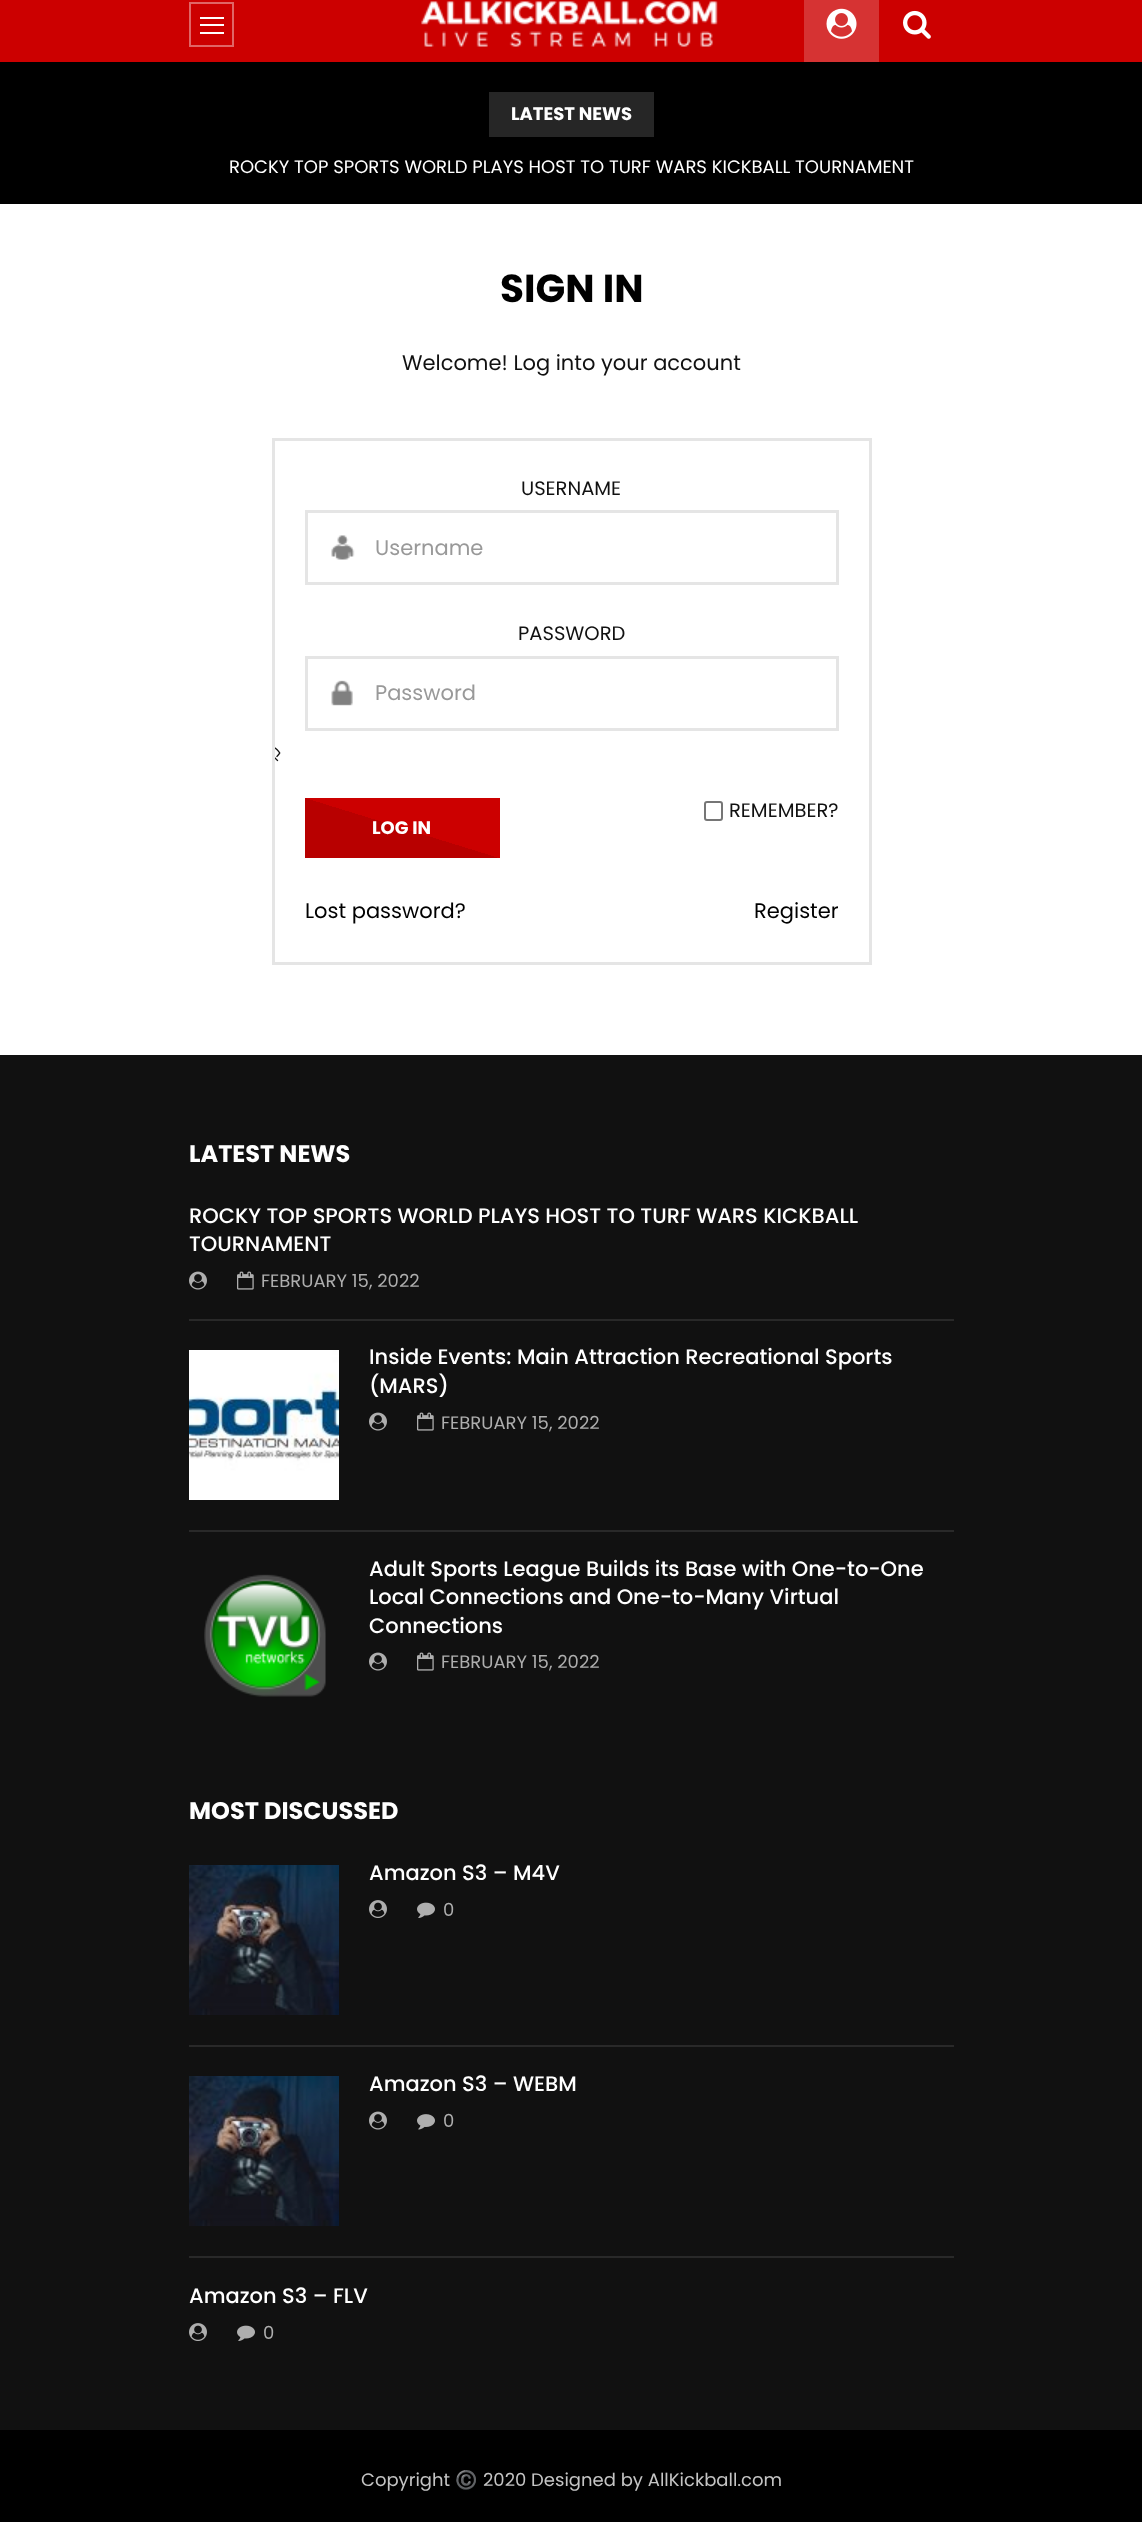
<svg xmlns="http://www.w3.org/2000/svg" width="1142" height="2522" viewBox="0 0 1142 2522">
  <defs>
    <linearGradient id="g1" gradientUnits="userSpaceOnUse" x1="419" y1="773" x2="385" y2="883"><stop offset="0.5" stop-color="rgb(204,0,0)"/><stop offset="0.5" stop-color="rgb(184,0,0)"/></linearGradient>
  </defs>
  <rect width="100%" height="100%" fill="rgb(255,255,255)"/>
  <rect x="0" y="0" width="1142" height="62" fill="rgb(204,0,0)"/>
  <rect x="190" y="3" width="43" height="43" fill="none" stroke="rgb(224,102,102)" stroke-width="2"/>
  <rect x="200" y="17" width="24" height="2" fill="rgb(255,255,255)"/>
  <rect x="200" y="24" width="24" height="2" fill="rgb(255,255,255)"/>
  <rect x="200" y="32" width="24" height="2" fill="rgb(255,255,255)"/>
  <image x="421" y="1" width="297" height="46" href="pic1.png"/>
  <rect x="804" y="0" width="75" height="62" fill="rgb(214,51,51)"/>
  <image x="826" y="8" width="31" height="31" href="pic2.png"/>
  <image x="903" y="10" width="28" height="29" href="pic3.png"/>
  <rect x="0" y="62" width="1142" height="142" fill="rgb(0,0,0)"/>
  <rect x="489" y="92" width="165" height="45" fill="rgb(38,38,38)"/>
  <text x="511" y="120" font-family="Poppins" font-size="18" font-weight="bold" fill="rgb(255,255,255)">LATEST NEWS</text>
  <text x="229" y="173" font-family="Poppins" font-size="18" fill="rgb(255,255,255)">ROCKY TOP SPORTS WORLD PLAYS HOST TO TURF WARS KICKBALL TOURNAMENT</text>
  <text x="500" y="302" font-family="Poppins" font-size="39" font-weight="bold" fill="rgb(0,0,0)">SIGN IN</text>
  <text x="402" y="370" font-family="Poppins" font-size="21" fill="rgb(17,17,17)">Welcome! Log into your account</text>
  <rect x="273.5" y="439.5" width="597" height="524" fill="none" stroke="rgb(229,229,229)" stroke-width="3"/>
  <text x="521" y="495" font-family="Poppins" font-size="19.5" fill="rgb(17,17,17)">USERNAME</text>
  <image x="331" y="535" width="24" height="25" href="pic4.png"/>
  <rect x="306.5" y="511.5" width="531" height="72" fill="none" stroke="rgb(229,229,229)" stroke-width="3"/>
  <text x="375" y="555" font-family="Poppins" font-size="21" fill="rgb(153,153,153)">Username</text>
  <text x="518" y="640" font-family="Poppins" font-size="19.5" fill="rgb(17,17,17)">PASSWORD</text>
  <image x="331" y="680" width="22" height="26" href="pic5.png"/>
  <rect x="306.5" y="657.5" width="531" height="72" fill="none" stroke="rgb(229,229,229)" stroke-width="3"/>
  <text x="375" y="700" font-family="Poppins" font-size="21" fill="rgb(153,153,153)">Password</text>
  <image x="275" y="747" width="6" height="15" href="pic6.png"/>
  <rect x="705" y="802" width="17" height="18" rx="2" fill="none" stroke="rgb(118,118,118)" stroke-width="2"/>
  <text x="729" y="817" font-family="Poppins" font-size="19.5" fill="rgb(17,17,17)">REMEMBER?</text>
  <rect x="305" y="798" width="195" height="60" fill="url(#g1)"/>
  <text x="372" y="834" font-family="Poppins" font-size="18" font-weight="bold" fill="rgb(255,255,255)">LOG IN</text>
  <g font-family="Poppins" font-size="21" fill="rgb(0,0,0)">
    <text x="305" y="918">Lost password?</text>
    <text x="754" y="918">Register</text>
  </g>
  <rect x="0" y="1055" width="1142" height="1375" fill="rgb(17,17,17)"/>
  <text x="189" y="1162" font-family="Poppins" font-size="24" font-weight="bold" fill="rgb(255,255,255)">LATEST NEWS</text>
  <rect x="189" y="1319" width="765" height="2" fill="rgb(41,41,41)"/>
  <g font-family="Poppins" font-size="21" font-weight="500" fill="rgb(255,255,255)">
    <text>
      <tspan x="189" y="1223">ROCKY TOP SPORTS WORLD PLAYS HOST TO TURF WARS KICKBALL</tspan>
      <tspan x="189" y="1251">TOURNAMENT</tspan>
    </text>
  </g>
  <image x="189" y="1271" width="18" height="19" href="pic7.png"/>
  <image x="237" y="1271" width="17" height="19" href="pic8.png"/>
  <text x="261" y="1287" font-family="Poppins" font-size="18" fill="rgb(174,174,174)">FEBRUARY 15, 2022</text>
  <rect x="189" y="1530" width="765" height="2" fill="rgb(41,41,41)"/>
  <image x="189" y="1350" width="150" height="150" href="pic9.png"/>
  <g font-family="Poppins" font-size="21" font-weight="500" fill="rgb(255,255,255)">
    <text>
      <tspan x="369" y="1364">Inside Events: Main Attraction Recreational Sports</tspan>
      <tspan x="369" y="1393">(MARS)</tspan>
    </text>
  </g>
  <image x="369" y="1412" width="18" height="19" href="pic7.png"/>
  <image x="417" y="1412" width="17" height="19" href="pic8.png"/>
  <text x="441" y="1429" font-family="Poppins" font-size="18" fill="rgb(174,174,174)">FEBRUARY 15, 2022</text>
  <image x="204" y="1574" width="122" height="123" href="pic10.png"/>
  <g font-family="Poppins" font-size="21" font-weight="500" fill="rgb(255,255,255)">
    <text>
      <tspan x="369" y="1576">Adult Sports League Builds its Base with One-to-One</tspan>
      <tspan x="369" y="1604">Local Connections and One-to-Many Virtual</tspan>
      <tspan x="369" y="1633">Connections</tspan>
    </text>
  </g>
  <image x="369" y="1652" width="18" height="19" href="pic7.png"/>
  <image x="417" y="1652" width="17" height="19" href="pic8.png"/>
  <text x="441" y="1668" font-family="Poppins" font-size="18" fill="rgb(174,174,174)">FEBRUARY 15, 2022</text>
  <text x="189" y="1819" font-family="Poppins" font-size="24" font-weight="bold" fill="rgb(255,255,255)">MOST DISCUSSED</text>
  <rect x="189" y="2045" width="765" height="2" fill="rgb(41,41,41)"/>
  <image x="189" y="1865" width="150" height="150" href="pic11.png"/>
  <text x="369" y="1880" font-family="Poppins" font-size="21" font-weight="500" fill="rgb(255,255,255)">Amazon S3 – M4V</text>
  <image x="369" y="1900" width="18" height="18" href="pic12.png"/>
  <image x="417" y="1902" width="18" height="16" href="pic13.png"/>
  <text x="443" y="1916" font-family="Poppins" font-size="18" fill="rgb(174,174,174)">0</text>
  <rect x="189" y="2256" width="765" height="2" fill="rgb(41,41,41)"/>
  <image x="189" y="2076" width="150" height="150" href="pic14.png"/>
  <text x="369" y="2091" font-family="Poppins" font-size="21" font-weight="500" fill="rgb(255,255,255)">Amazon S3 – WEBM</text>
  <image x="369" y="2111" width="18" height="19" href="pic7.png"/>
  <image x="417" y="2114" width="18" height="16" href="pic15.png"/>
  <text x="443" y="2127" font-family="Poppins" font-size="18" fill="rgb(174,174,174)">0</text>
  <text x="189" y="2303" font-family="Poppins" font-size="21" font-weight="500" fill="rgb(255,255,255)">Amazon S3 – FLV</text>
  <image x="189" y="2323" width="18" height="18" href="pic12.png"/>
  <image x="237" y="2325" width="18" height="16" href="pic13.png"/>
  <text x="263" y="2339" font-family="Poppins" font-size="18" fill="rgb(174,174,174)">0</text>
  <rect x="0" y="2430" width="1142" height="92" fill="rgb(0,0,0)"/>
  <text x="361" y="2486" font-family="Poppins" font-size="18" fill="rgb(196,196,196)">Copyright</text>
  <text x="455" y="2486" font-family="Noto Color Emoji" font-size="18" fill="rgb(196,196,196)">©️</text>
  <text x="483" y="2486" font-family="Poppins" font-size="18" fill="rgb(196,196,196)">2020 Designed by AllKickball.com</text>
</svg>
